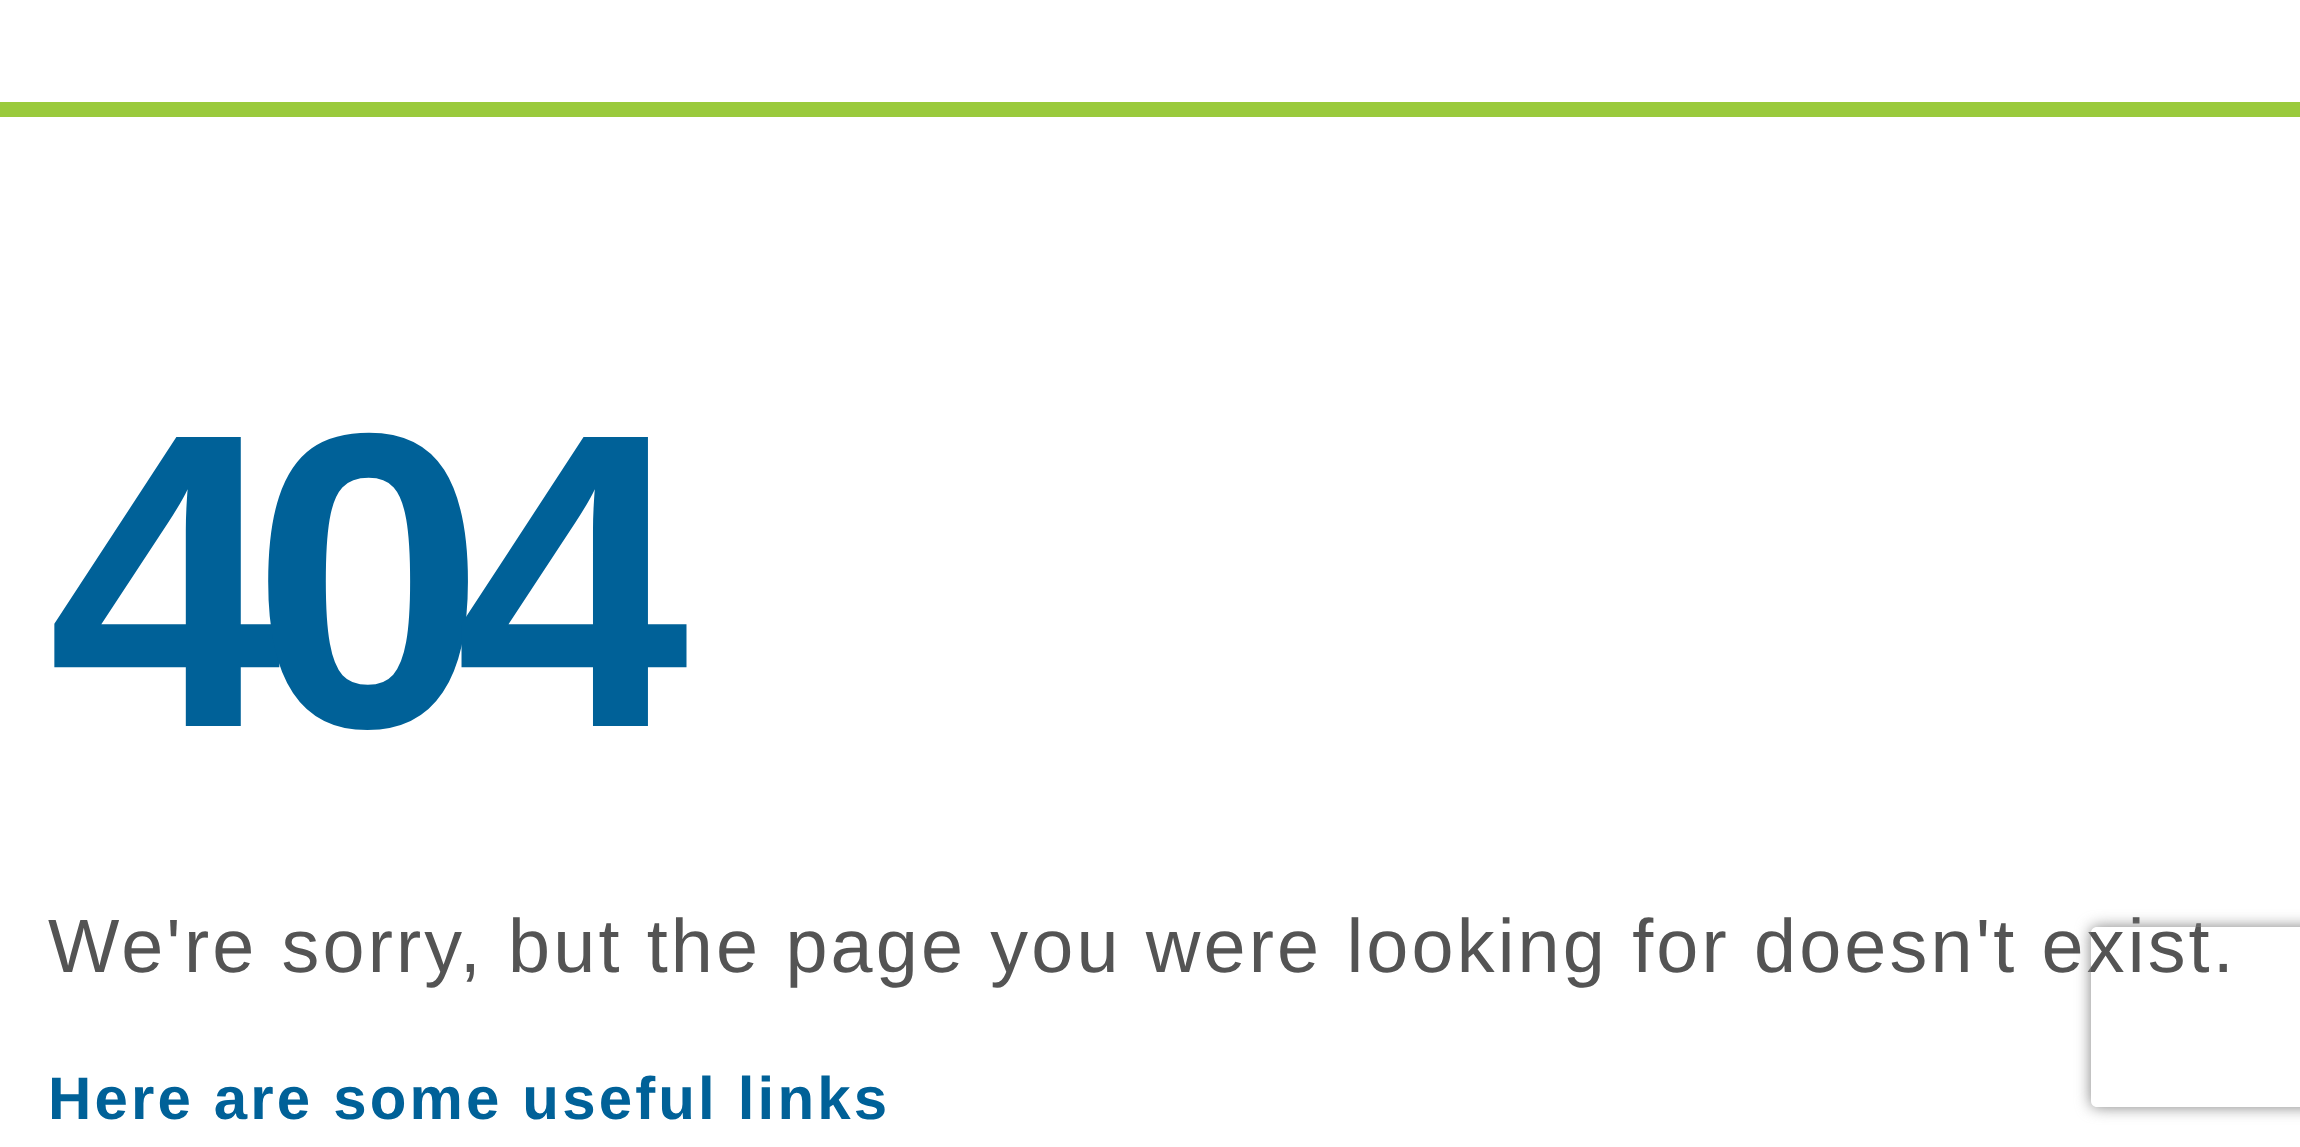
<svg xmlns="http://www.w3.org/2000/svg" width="2300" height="1147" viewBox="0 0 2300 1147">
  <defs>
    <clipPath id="clip1"><path d="M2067 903H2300V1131H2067ZM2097 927H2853C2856.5 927 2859 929.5 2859 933V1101C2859 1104.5 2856.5 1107 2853 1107H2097C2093.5 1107 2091 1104.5 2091 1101V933C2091 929.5 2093.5 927 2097 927Z" clip-rule="evenodd"/></clipPath>
  </defs>
  <rect width="100%" height="100%" fill="rgb(255,255,255)"/>
  <rect x="0" y="102" width="2300" height="15" fill="rgb(154,202,60)"/>
  <text x="48" y="726" font-family="Liberation Sans" font-size="420" font-weight="bold" letter-spacing="-30" fill="rgb(0,97,152)">404</text>
  <text x="48" y="972" font-family="Liberation Sans" font-size="75.6" letter-spacing="3.15" fill="rgb(84,84,84)">We're sorry, but the page you were looking for doesn't exist.</text>
  <text x="48" y="1119" font-family="Liberation Sans" font-size="60" font-weight="bold" letter-spacing="3.15" fill="rgb(0,97,152)">Here are some useful links</text>
  <g clip-path="url(#clip1)">
    <rect x="2091" y="927" width="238" height="180" rx="6" fill="rgb(128,128,128)" filter="blur(7.5px)"/>
  </g>
</svg>
